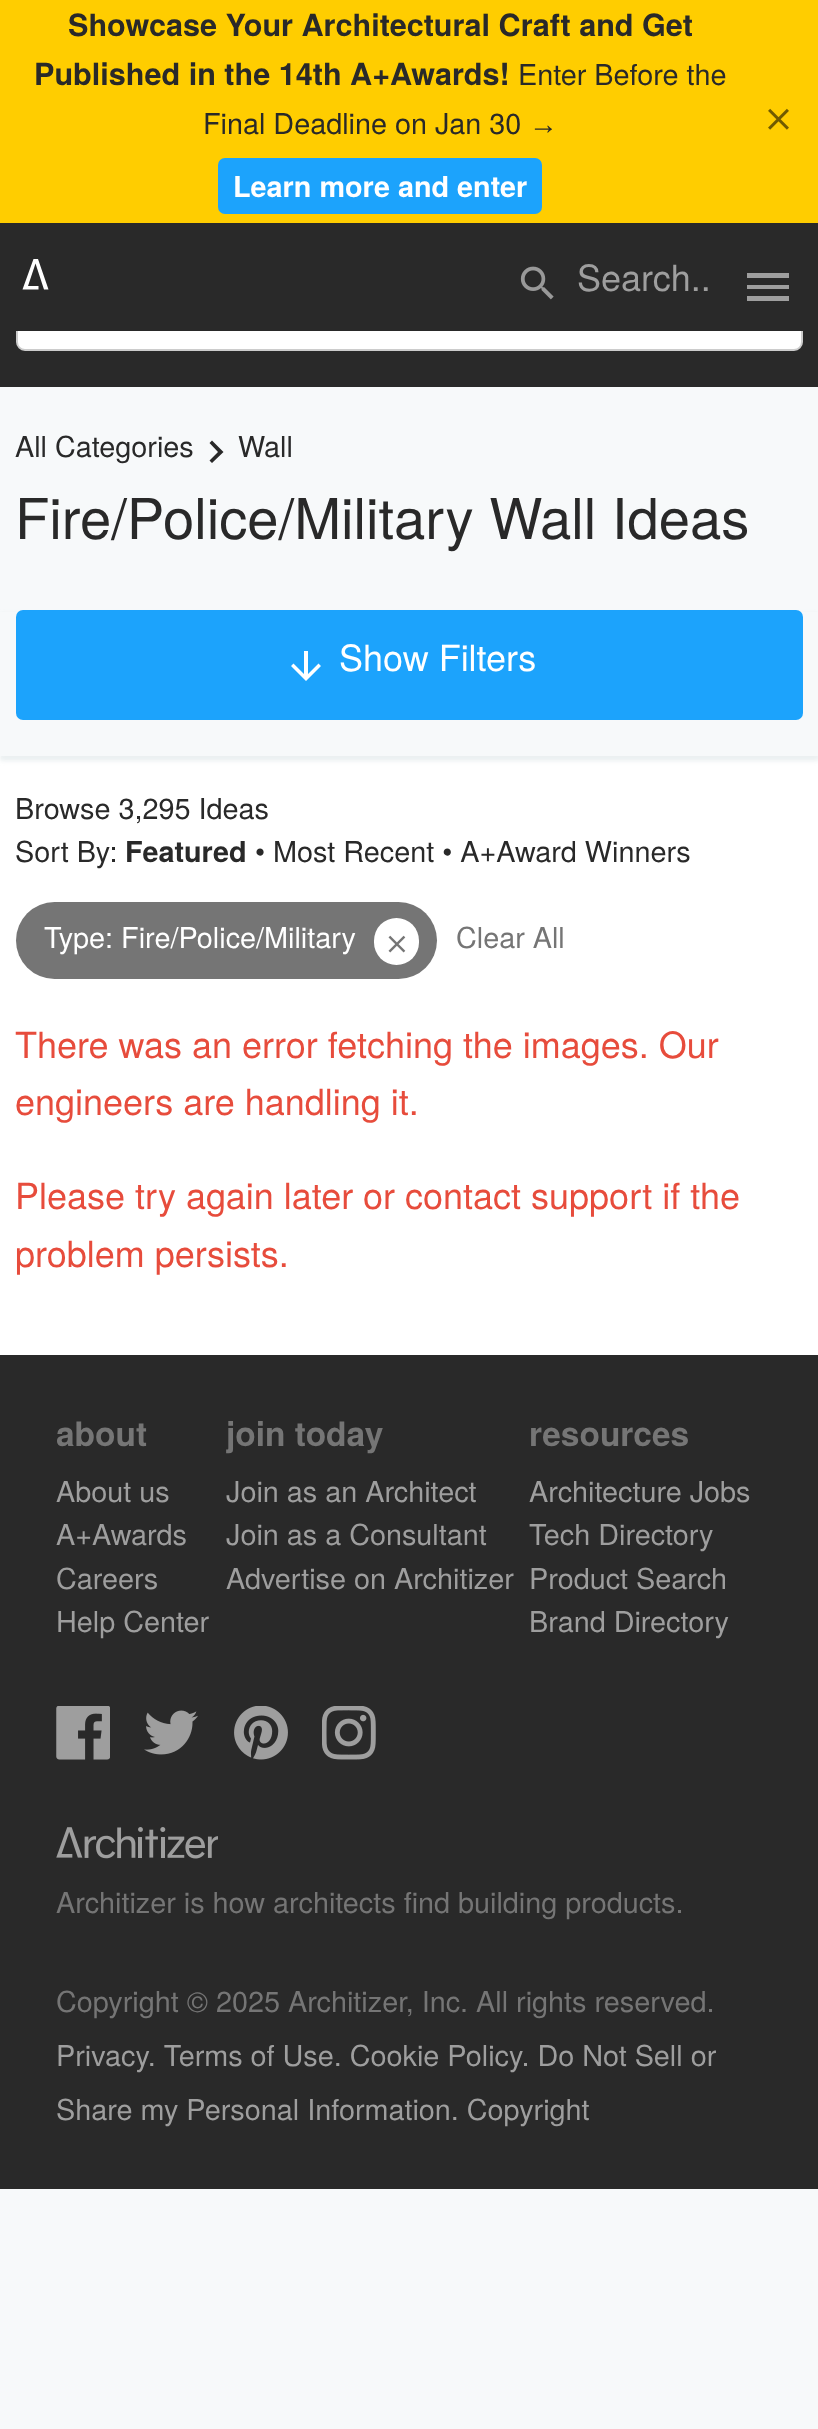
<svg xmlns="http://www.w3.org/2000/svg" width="818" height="2429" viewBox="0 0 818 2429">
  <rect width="100%" height="100%" fill="rgb(247,249,250)"/>
  <rect x="0" y="0" width="818" height="223" fill="rgb(255,205,0)"/>
  <g font-family="TeX Gyre Heros" font-size="30.6" font-weight="bold" fill="rgb(41,41,41)">
    <text x="68" y="36">Showcase Your Architectural Craft and Get</text>
    <text x="34" y="85">Published in the 14th A+Awards!</text>
  </g>
  <g font-family="TeX Gyre Heros" font-size="28.8" fill="rgb(41,41,41)">
    <text x="518" y="85">Enter Before the</text>
    <text x="203" y="134">Final Deadline on Jan 30</text>
  </g>
  <text x="529" y="134" font-family="Liberation Sans" font-size="28.8" fill="rgb(41,41,41)">→</text>
  <rect x="218" y="158" width="324" height="56" rx="7" fill="rgb(28,163,252)"/>
  <text x="233" y="197" font-family="TeX Gyre Heros" font-size="28.8" font-weight="bold" fill="rgb(255,255,255)">Learn more and enter</text>
  <image x="768" y="108" width="21" height="22" href="pic1.png"/>
  <rect x="0" y="331" width="818" height="56" fill="rgb(41,41,41)"/>
  <rect x="17" y="253" width="785" height="97" rx="8" fill="rgb(255,255,255)" stroke="rgb(204,204,204)" stroke-width="2"/>
  <rect x="0" y="223" width="818" height="108" fill="rgb(41,41,41)"/>
  <path d="M44 289.5L35.5 263.5L28 286H38.5V289.5H22.5L33.5 259H38L48.5 289.5Z" fill="rgb(255,255,255)"/>
  <image x="520" y="266" width="34" height="34" href="pic2.png"/>
  <text x="577" y="291" font-family="TeX Gyre Heros" font-size="36" fill="rgb(158,158,158)">Search..</text>
  <path d="M747 273H789V278H747ZM747 289V285H789V289ZM747 301V296H789V301Z" fill="rgb(158,158,158)"/>
  <rect x="0" y="756" width="818" height="599" fill="rgb(255,255,255)"/>
  <text x="15" y="457" font-family="TeX Gyre Heros" font-size="28.8" fill="rgb(41,41,41)">All Categories</text>
  <path d="M209.5 460.5L218 452L209.5 443L212 440.5L223.5 452L212 463Z" fill="rgb(41,41,41)"/>
  <text x="238" y="457" font-family="TeX Gyre Heros" font-size="28.8" fill="rgb(41,41,41)">Wall</text>
  <text x="15" y="539" font-family="TeX Gyre Heros" font-size="56.25" fill="rgb(41,41,41)">Fire/Police/Military Wall Ideas</text>
  <rect x="0" y="614" width="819" height="147" fill="rgba(231,237,239,0.85)" filter="blur(2px)"/>
  <rect x="0" y="612" width="818" height="144" fill="rgb(247,249,250)"/>
  <rect x="16" y="610" width="787" height="110" rx="7" fill="rgb(28,163,252)"/>
  <path d="M321 666L306 681L291 666L293.5 663.5L304 674V651H308V674L318.5 663.5Z" fill="rgb(255,255,255)"/>
  <text x="339" y="671" font-family="TeX Gyre Heros" font-size="36" fill="rgb(255,255,255)">Show Filters</text>
  <g font-family="TeX Gyre Heros" font-size="28.8" fill="rgb(41,41,41)">
    <text>
      <tspan x="15" y="819">Browse 3,295 Ideas</tspan>
      <tspan x="15" y="862">Sort By:</tspan>
    </text>
  </g>
  <text x="125" y="862" font-family="TeX Gyre Heros" font-size="28.8" font-weight="bold" fill="rgb(41,41,41)">Featured</text>
  <text x="255" y="862" font-family="TeX Gyre Heros" font-size="28.8" fill="rgb(41,41,41)">• Most Recent • A+Award Winners</text>
  <rect x="16" y="902" width="421" height="77" rx="38.5" fill="rgb(117,117,117)"/>
  <text x="44" y="948" font-family="TeX Gyre Heros" font-size="28.8" fill="rgb(255,255,255)">Type: Fire/Police/Military</text>
  <rect x="374" y="918" width="45" height="47" rx="22.5" fill="rgb(255,255,255)"/>
  <image x="388" y="935" width="18" height="18" href="pic3.png"/>
  <text x="456" y="948" font-family="TeX Gyre Heros" font-size="28.8" fill="rgb(117,117,117)">Clear All</text>
  <g font-family="TeX Gyre Heros" font-size="36" fill="rgb(231,76,60)">
    <text>
      <tspan x="15" y="1058">There was an error fetching the images. Our</tspan>
      <tspan x="15" y="1115">engineers are handling it.</tspan>
    </text>
    <text>
      <tspan x="15" y="1209">Please try again later or contact support if the</tspan>
      <tspan x="15" y="1267">problem persists.</tspan>
    </text>
  </g>
  <rect x="0" y="1355" width="818" height="834" fill="rgb(41,41,41)"/>
  <text x="56" y="1446" font-family="TeX Gyre Heros" font-size="33.5" font-weight="bold" fill="rgb(117,117,117)">about</text>
  <g font-family="TeX Gyre Heros" font-size="28.8" fill="rgb(158,158,158)">
    <text>
      <tspan x="56" y="1502">About us</tspan>
      <tspan x="56" y="1545">A+Awards</tspan>
      <tspan x="56" y="1589">Careers</tspan>
      <tspan x="56" y="1632">Help Center</tspan>
    </text>
  </g>
  <text x="226" y="1446" font-family="TeX Gyre Heros" font-size="33.5" font-weight="bold" fill="rgb(117,117,117)">join today</text>
  <g font-family="TeX Gyre Heros" font-size="28.8" fill="rgb(158,158,158)">
    <text>
      <tspan x="226" y="1502">Join as an Architect</tspan>
      <tspan x="226" y="1545">Join as a Consultant</tspan>
      <tspan x="226" y="1589">Advertise on Architizer</tspan>
    </text>
  </g>
  <text x="529" y="1446" font-family="TeX Gyre Heros" font-size="33.5" font-weight="bold" fill="rgb(117,117,117)">resources</text>
  <g font-family="TeX Gyre Heros" font-size="28.8" fill="rgb(158,158,158)">
    <text>
      <tspan x="529" y="1502">Architecture Jobs</tspan>
      <tspan x="529" y="1545">Tech Directory</tspan>
      <tspan x="529" y="1589">Product Search</tspan>
      <tspan x="529" y="1632">Brand Directory</tspan>
    </text>
  </g>
  <image x="56" y="1706" width="54" height="54" href="pic4.png"/>
  <image x="144" y="1710" width="54" height="45" href="pic5.png"/>
  <image x="234" y="1706" width="54" height="54" href="pic6.png"/>
  <image x="322" y="1706" width="54" height="54" href="pic7.png"/>
  <image x="56" y="1827" width="162" height="32" href="pic8.png"/>
  <g font-family="TeX Gyre Heros" font-size="28.8" fill="rgb(117,117,117)">
    <text x="56" y="1913">Architizer is how architects find building products.</text>
    <text x="56" y="2012">Copyright © 2025 Architizer, Inc. All rights reserved.</text>
  </g>
  <g font-family="TeX Gyre Heros" font-size="28.8" fill="rgb(158,158,158)">
    <text>
      <tspan x="56" y="2066">Privacy. Terms of Use. Cookie Policy. Do Not Sell or</tspan>
      <tspan x="56" y="2120">Share my Personal Information. Copyright</tspan>
    </text>
  </g>
</svg>
